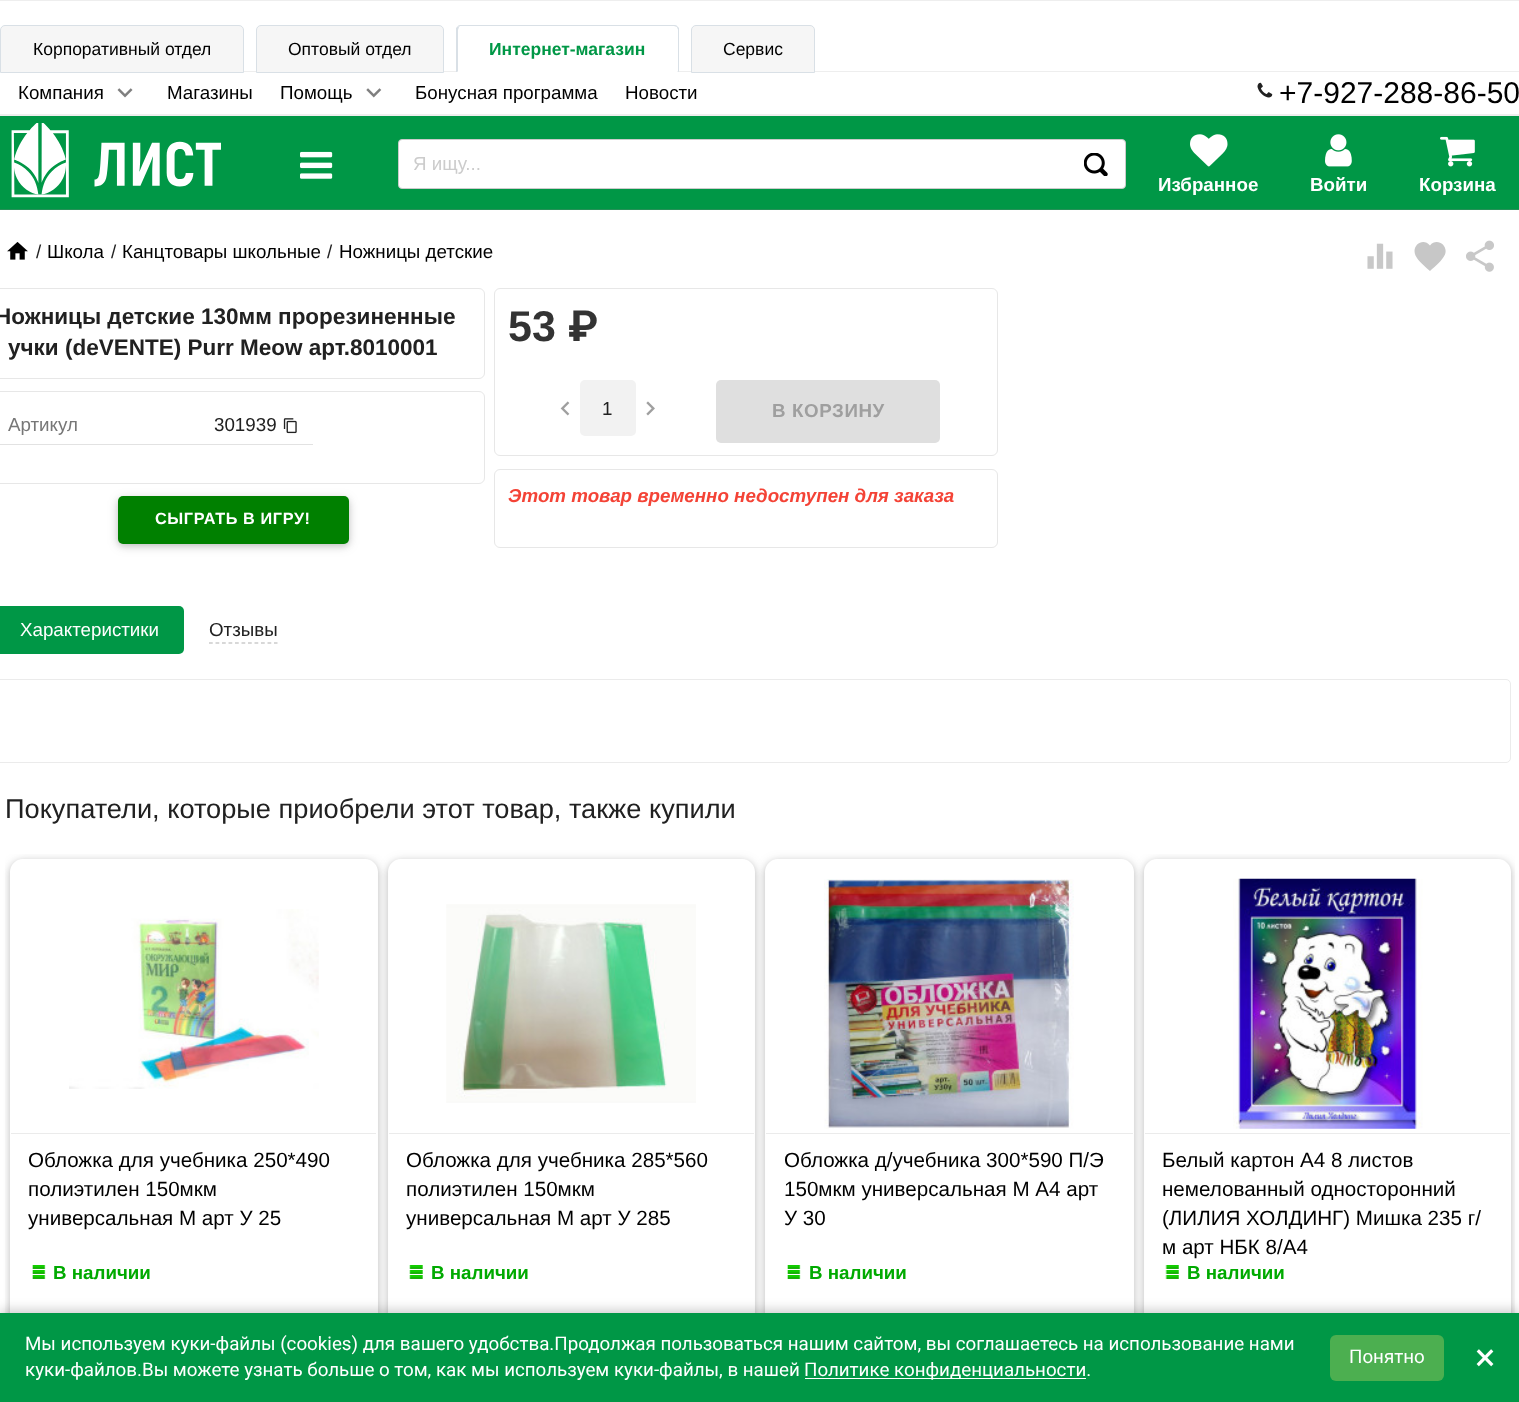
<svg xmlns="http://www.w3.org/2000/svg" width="1519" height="1402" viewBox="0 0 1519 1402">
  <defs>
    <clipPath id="clip1"><rect x="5" y="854" width="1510" height="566"/></clipPath>
    <clipPath id="clip2"><path d="M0 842H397V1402H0ZM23 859H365C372 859 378 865 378 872V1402C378 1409 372 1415 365 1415H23C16 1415 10 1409 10 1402V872C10 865 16 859 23 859Z" clip-rule="evenodd"/></clipPath>
    <clipPath id="clip3"><path d="M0 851H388V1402H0ZM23 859H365C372 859 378 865 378 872V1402C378 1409 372 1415 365 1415H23C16 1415 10 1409 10 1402V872C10 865 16 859 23 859Z" clip-rule="evenodd"/></clipPath>
    <clipPath id="clip4"><path d="M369 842H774V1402H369ZM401 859H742C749 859 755 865 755 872V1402C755 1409 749 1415 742 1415H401C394 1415 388 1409 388 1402V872C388 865 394 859 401 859Z" clip-rule="evenodd"/></clipPath>
    <clipPath id="clip5"><path d="M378 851H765V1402H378ZM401 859H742C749 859 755 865 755 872V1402C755 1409 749 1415 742 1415H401C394 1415 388 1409 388 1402V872C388 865 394 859 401 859Z" clip-rule="evenodd"/></clipPath>
    <clipPath id="clip6"><path d="M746 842H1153V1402H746ZM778 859H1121C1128 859 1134 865 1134 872V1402C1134 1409 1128 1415 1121 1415H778C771 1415 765 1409 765 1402V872C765 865 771 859 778 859Z" clip-rule="evenodd"/></clipPath>
    <clipPath id="clip7"><path d="M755 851H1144V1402H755ZM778 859H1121C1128 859 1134 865 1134 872V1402C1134 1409 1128 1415 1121 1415H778C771 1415 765 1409 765 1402V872C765 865 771 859 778 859Z" clip-rule="evenodd"/></clipPath>
    <clipPath id="clip8"><path d="M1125 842H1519V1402H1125ZM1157 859H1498C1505 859 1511 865 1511 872V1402C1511 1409 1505 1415 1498 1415H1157C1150 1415 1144 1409 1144 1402V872C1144 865 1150 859 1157 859Z" clip-rule="evenodd"/></clipPath>
    <clipPath id="clip9"><path d="M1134 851H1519V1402H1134ZM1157 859H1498C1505 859 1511 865 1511 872V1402C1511 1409 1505 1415 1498 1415H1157C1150 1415 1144 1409 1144 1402V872C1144 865 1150 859 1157 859Z" clip-rule="evenodd"/></clipPath>
  </defs>
  <rect width="100%" height="100%" fill="rgb(255,255,255)"/>
  <rect x="0" y="0" width="1519" height="1" fill="rgb(238,238,238)"/>
  <path d="M5 25.5H239C241.5 25.5 243.5 27.5 243.5 30V72.5H.5V30C.5 27.5 2.5 25.5 5 25.5Z" fill="rgb(246,246,246)" stroke="rgb(217,224,230)"/>
  <text x="33" y="55" font-family="Liberation Sans" font-size="17.5" fill="rgb(0,0,0)">Корпоративный отдел</text>
  <rect x="244" y="71" width="1275" height="1" fill="rgb(238,238,238)"/>
  <path d="M261 25.5H439C441.5 25.5 443.5 27.5 443.5 30V72.5H256.5V30C256.5 27.5 258.5 25.5 261 25.5Z" fill="rgb(246,246,246)" stroke="rgb(217,224,230)"/>
  <text x="288" y="55" font-family="Liberation Sans" font-size="17.5" fill="rgb(0,0,0)">Оптовый отдел</text>
  <text x="489" y="55" font-family="Liberation Sans" font-size="17.5" font-weight="bold" fill="rgb(0,151,70)">Интернет-магазин</text>
  <path d="M461 25C460 25 458 25 458 26L459 27L460 26H674L677 27V26C677 25 675 25 674 25Z" fill="rgb(217,224,230)"/>
  <path d="M679 72L677 71H678V30C678 29 677 28 677 27V26L679 28Z" fill="rgb(217,224,230)"/>
  <path d="M678 72H457L458 71H677Z" fill="rgb(255,255,255)"/>
  <path d="M456 28L458 26L459 27L458 30V71L457 72H456Z" fill="rgb(217,224,230)"/>
  <path d="M696 25.5H810C812.5 25.5 814.5 27.5 814.5 30V72.5H691.5V30C691.5 27.5 693.5 25.5 696 25.5Z" fill="rgb(246,246,246)" stroke="rgb(217,224,230)"/>
  <text x="723" y="55" font-family="Liberation Sans" font-size="17.5" fill="rgb(0,0,0)">Сервис</text>
  <text x="18" y="99" font-family="Liberation Sans" font-size="18.75" fill="rgb(0,0,0)">Компания</text>
  <image x="117" y="88" width="16" height="10" href="pic1.png"/>
  <g font-family="Liberation Sans" font-size="18.75" fill="rgb(0,0,0)">
    <text x="167" y="99">Магазины</text>
    <text x="280" y="99">Помощь</text>
  </g>
  <image x="366" y="88" width="16" height="10" href="pic2.png"/>
  <g font-family="Liberation Sans" font-size="18.75" fill="rgb(0,0,0)">
    <text x="415" y="99">Бонусная программа</text>
    <text x="625" y="99">Новости</text>
  </g>
  <image x="1257" y="82" width="16" height="16" href="pic3.png"/>
  <text x="1279" y="103" font-family="Liberation Sans" font-size="30" fill="rgb(0,0,0)">+7-927-288-86-50</text>
  <rect x="0" y="114" width="1519" height="2" fill="rgb(238,238,238)"/>
  <rect x="0" y="116" width="1519" height="93" fill="rgb(0,151,70)"/>
  <rect x="0" y="209" width="1519" height="1" fill="rgb(37,144,87)"/>
  <image x="11" y="123" width="210" height="75" href="pic4.png"/>
  <image x="300" y="151" width="33" height="28" href="pic5.png"/>
  <rect x="398.5" y="139.5" width="727" height="49" rx="3.5" fill="rgb(255,255,255)" stroke="rgb(203,203,203)"/>
  <text x="413" y="170" font-family="Liberation Sans" font-size="18.75" fill="rgb(204,204,204)">Я ищу...</text>
  <image x="1084" y="153" width="24" height="23" href="pic6.png"/>
  <image x="1190" y="134" width="38" height="33" href="pic7.png"/>
  <text x="1158" y="191" font-family="Liberation Sans" font-size="18.75" font-weight="bold" fill="rgb(255,255,255)">Избранное</text>
  <image x="1325" y="134" width="27" height="33" href="pic8.png"/>
  <text x="1310" y="191" font-family="Liberation Sans" font-size="18.75" font-weight="bold" fill="rgb(255,255,255)">Войти</text>
  <image x="1440" y="136" width="35" height="31" href="pic9.png"/>
  <text x="1419" y="191" font-family="Liberation Sans" font-size="18.75" font-weight="bold" fill="rgb(255,255,255)">Корзина</text>
  <image x="7" y="242" width="21" height="18" href="pic10.png"/>
  <text x="36" y="258" font-family="Liberation Sans" font-size="18.75" fill="rgb(33,33,33)">/</text>
  <text x="47" y="258" font-family="Liberation Sans" font-size="18.75" fill="rgb(0,0,0)">Школа</text>
  <text x="111" y="258" font-family="Liberation Sans" font-size="18.75" fill="rgb(33,33,33)">/</text>
  <text x="122" y="258" font-family="Liberation Sans" font-size="18.75" fill="rgb(0,0,0)">Канцтовары школьные</text>
  <text x="327" y="258" font-family="Liberation Sans" font-size="18.75" fill="rgb(33,33,33)">/</text>
  <text x="339" y="258" font-family="Liberation Sans" font-size="18.75" fill="rgb(0,0,0)">Ножницы детские</text>
  <image x="1367" y="243" width="26" height="26" href="pic11.png"/>
  <path d="M1430 271C1425.5 267 1418 261 1415.5 255.5C1411 245.5 1423 237 1430 245.5C1436.5 237.5 1448.5 245 1445 254.5C1442 261 1435.5 266 1430 271Z" fill="rgb(199,199,199)"/>
  <image x="1466" y="240" width="28" height="32" href="pic12.png"/>
  <rect x="-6.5" y="288.5" width="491" height="90" rx="5.5" fill="none" stroke="rgb(231,231,231)"/>
  <g font-family="Liberation Sans" font-size="22.5" font-weight="bold" fill="rgb(33,33,33)">
    <text x="-5" y="324">Ножницы детские 130мм прорезиненные</text>
    <text x="8" y="355">учки (deVENTE) Purr Meow арт.8010001</text>
  </g>
  <rect x="-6.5" y="391.5" width="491" height="92" rx="5.5" fill="none" stroke="rgb(231,231,231)"/>
  <rect x="0" y="444" width="313" height="1" fill="rgb(226,226,226)"/>
  <text x="8" y="431" font-family="Liberation Sans" font-size="18.75" fill="rgb(119,119,119)">Артикул</text>
  <text x="214" y="431" font-family="Liberation Sans" font-size="18.75" fill="rgb(33,33,33)">301939</text>
  <image x="283" y="418" width="14" height="16" href="pic13.png"/>
  <rect x="118" y="499" width="231" height="47" rx="5" fill="rgba(0,0,0,0.12)" filter="blur(6px)"/>
  <rect x="118" y="499" width="231" height="47" rx="5" fill="rgba(0,0,0,0.16)" filter="blur(3px)"/>
  <rect x="118" y="496" width="231" height="48" rx="5" fill="rgb(0,128,0)"/>
  <text x="155" y="524" font-family="Liberation Sans" font-size="16.25" font-weight="bold" letter-spacing="0.6" fill="rgb(255,255,255)">СЫГРАТЬ В ИГРУ!</text>
  <rect x="494.5" y="288.5" width="503" height="167" rx="5.5" fill="none" stroke="rgb(231,231,231)"/>
  <text x="508" y="341" font-family="Liberation Sans" font-size="43" font-weight="bold" fill="rgb(51,51,51)">53</text>
  <text x="568" y="341" font-family="Roboto" font-size="43" font-weight="bold" fill="rgb(51,51,51)">₽</text>
  <image x="560" y="401" width="10" height="15" href="pic14.png"/>
  <rect x="580" y="380" width="56" height="56" rx="5" fill="rgb(242,242,242)"/>
  <text x="602" y="415" font-family="Liberation Sans" font-size="18.75" fill="rgb(33,33,33)">1</text>
  <image x="646" y="401" width="9" height="15" href="pic15.png"/>
  <rect x="716" y="380" width="224" height="63" rx="5" fill="rgb(223,223,223)"/>
  <text x="772" y="417" font-family="Liberation Sans" font-size="18.75" font-weight="bold" letter-spacing="0.6" fill="rgb(159,159,159)">В КОРЗИНУ</text>
  <rect x="494.5" y="469.5" width="503" height="78" rx="5.5" fill="none" stroke="rgb(231,231,231)"/>
  <text x="508" y="502" font-family="Liberation Sans" font-size="18.75" font-weight="bold" font-style="italic" fill="rgb(244,67,54)">Этот товар временно недоступен для заказа</text>
  <rect x="-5" y="606" width="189" height="48" rx="5" fill="rgb(0,151,70)"/>
  <text x="20" y="636" font-family="Liberation Sans" font-size="18.75" fill="rgb(255,255,255)">Характеристики</text>
  <text x="209" y="636" font-family="Liberation Sans" font-size="18.75" fill="rgb(33,33,33)">Отзывы</text>
  <path d="M209 643H277.5" fill="none" stroke="rgb(178,178,178)" stroke-width="1.2" stroke-dasharray="3.75 2.75"/>
  <rect x="-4.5" y="679.5" width="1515" height="83" rx="4.5" fill="none" stroke="rgb(235,235,235)"/>
  <text x="5" y="818" font-family="Liberation Sans" font-size="27.2" fill="rgb(33,33,33)">Покупатели, которые приобрели этот товар, также купили</text>
  <g clip-path="url(#clip1)">
    <g clip-path="url(#clip2)">
      <rect x="10" y="861" width="368" height="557" rx="13" fill="rgba(0,0,0,0.12)" filter="blur(6px)"/>
    </g>
  </g>
  <g clip-path="url(#clip3)">
    <rect x="10" y="861" width="368" height="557" rx="13" fill="rgba(0,0,0,0.16)" filter="blur(3px)"/>
  </g>
  <image x="69" y="909" width="250" height="180" href="pic16.png"/>
  <rect x="11" y="1133" width="365" height="1" fill="rgb(235,235,235)"/>
  <g font-family="Liberation Sans" font-size="20.6" fill="rgb(0,0,0)">
    <text>
      <tspan x="28" y="1167">Обложка для учебника 250*490</tspan>
      <tspan x="28" y="1196">полиэтилен 150мкм</tspan>
      <tspan x="28" y="1225">универсальная М арт У 25</tspan>
    </text>
  </g>
  <image x="32" y="1265" width="14" height="14" href="pic17.png"/>
  <text x="53" y="1279" font-family="Liberation Sans" font-size="18.75" font-weight="bold" fill="rgb(0,170,0)">В наличии</text>
  <g clip-path="url(#clip4)">
    <rect x="388" y="861" width="367" height="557" rx="13" fill="rgba(0,0,0,0.12)" filter="blur(6px)"/>
  </g>
  <g clip-path="url(#clip5)">
    <rect x="388" y="861" width="367" height="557" rx="13" fill="rgba(0,0,0,0.16)" filter="blur(3px)"/>
  </g>
  <image x="446" y="904" width="250" height="199" href="pic18.png"/>
  <rect x="389" y="1133" width="365" height="1" fill="rgb(235,235,235)"/>
  <g font-family="Liberation Sans" font-size="20.6" fill="rgb(0,0,0)">
    <text>
      <tspan x="406" y="1167">Обложка для учебника 285*560</tspan>
      <tspan x="406" y="1196">полиэтилен 150мкм</tspan>
      <tspan x="406" y="1225">универсальная М арт У 285</tspan>
    </text>
  </g>
  <image x="409" y="1265" width="14" height="14" href="pic19.png"/>
  <text x="431" y="1279" font-family="Liberation Sans" font-size="18.75" font-weight="bold" fill="rgb(0,170,0)">В наличии</text>
  <g clip-path="url(#clip6)">
    <rect x="765" y="861" width="369" height="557" rx="13" fill="rgba(0,0,0,0.12)" filter="blur(6px)"/>
  </g>
  <g clip-path="url(#clip7)">
    <rect x="765" y="861" width="369" height="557" rx="13" fill="rgba(0,0,0,0.16)" filter="blur(3px)"/>
  </g>
  <image x="824" y="879" width="250" height="250" href="pic20.png"/>
  <rect x="766" y="1133" width="367" height="1" fill="rgb(235,235,235)"/>
  <g font-family="Liberation Sans" font-size="20.6" fill="rgb(0,0,0)">
    <text>
      <tspan x="784" y="1167">Обложка д/учебника 300*590 П/Э</tspan>
      <tspan x="784" y="1196">150мкм универсальная М А4 арт</tspan>
      <tspan x="784" y="1225">У 30</tspan>
    </text>
  </g>
  <image x="787" y="1265" width="14" height="14" href="pic17.png"/>
  <text x="809" y="1279" font-family="Liberation Sans" font-size="18.75" font-weight="bold" fill="rgb(0,170,0)">В наличии</text>
  <g clip-path="url(#clip1)">
    <g clip-path="url(#clip8)">
      <rect x="1144" y="861" width="367" height="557" rx="13" fill="rgba(0,0,0,0.12)" filter="blur(6px)"/>
    </g>
  </g>
  <g clip-path="url(#clip9)">
    <rect x="1144" y="861" width="367" height="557" rx="13" fill="rgba(0,0,0,0.16)" filter="blur(3px)"/>
  </g>
  <image x="1233" y="878" width="190" height="251" href="pic21.png"/>
  <rect x="1145" y="1133" width="365" height="1" fill="rgb(235,235,235)"/>
  <g font-family="Liberation Sans" font-size="20.6" fill="rgb(0,0,0)">
    <text>
      <tspan x="1162" y="1167">Белый картон А4 8 листов</tspan>
      <tspan x="1162" y="1196">немелованный односторонний</tspan>
      <tspan x="1162" y="1225">(ЛИЛИЯ ХОЛДИНГ) Мишка 235 г/</tspan>
      <tspan x="1162" y="1254">м арт НБК 8/А4</tspan>
    </text>
  </g>
  <image x="1165" y="1265" width="14" height="14" href="pic22.png"/>
  <text x="1187" y="1279" font-family="Liberation Sans" font-size="18.75" font-weight="bold" fill="rgb(0,170,0)">В наличии</text>
  <rect x="0" y="1310" width="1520" height="90" fill="rgba(0,0,0,0.2)" filter="blur(6px)"/>
  <rect x="0" y="1313" width="1519" height="89" fill="rgb(0,151,70)"/>
  <g font-family="Roboto" font-size="18.75" fill="rgb(255,255,255)">
    <text>
      <tspan x="25" y="1350">Мы используем куки-файлы (cookies) для вашего удобства.Продолжая пользоваться нашим сайтом, вы соглашаетесь на использование нами</tspan>
      <tspan x="25" y="1376">куки-файлов.Вы можете узнать больше о том, как мы используем куки-файлы, в нашей</tspan>
    </text>
  </g>
  <rect x="805" y="1378" width="281" height="1" fill="rgb(255,255,255)"/>
  <text x="804" y="1376" font-family="Roboto" font-size="18.75" fill="rgb(255,255,255)">Политике конфиденциальности.</text>
  <rect x="1330" y="1335" width="114" height="46" rx="6" fill="rgb(76,175,80)"/>
  <text x="1349" y="1363" font-family="Roboto" font-size="18.75" fill="rgb(255,255,255)">Понятно</text>
  <text x="1475" y="1370" font-family="Roboto" font-size="38" fill="rgb(255,255,255)">×</text>
</svg>
